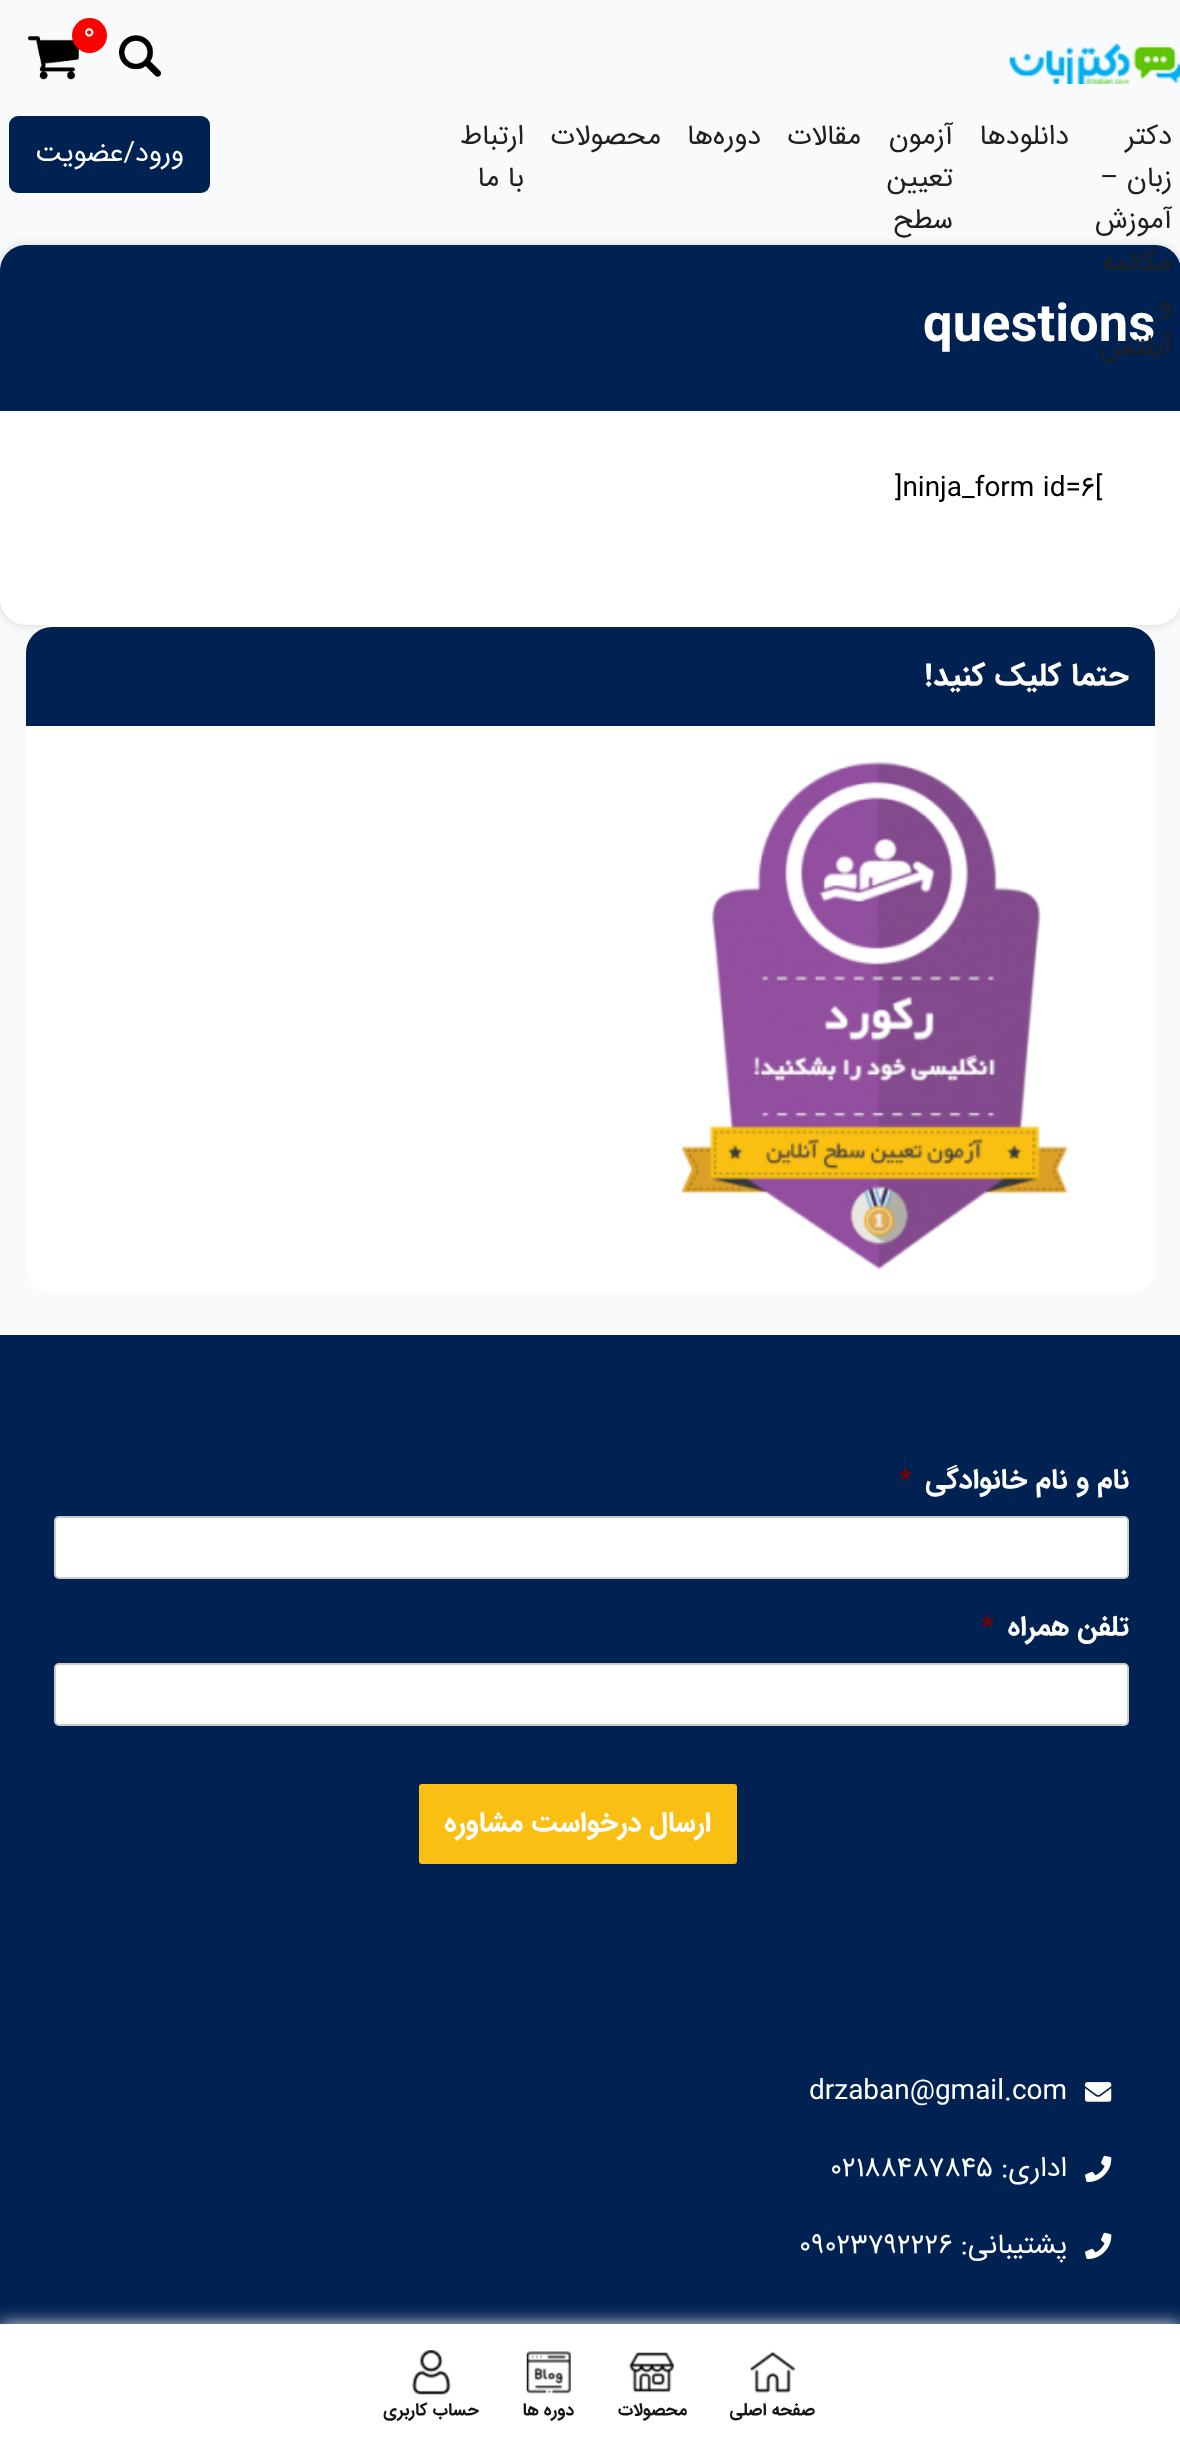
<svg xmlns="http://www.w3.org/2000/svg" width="1180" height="2454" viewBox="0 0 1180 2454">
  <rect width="100%" height="100%" fill="rgb(249,250,252)"/>
  <image x="28" y="35" width="51" height="45" href="pic1.png"/>
  <circle cx="89.5" cy="35.5" r="17.5" fill="rgb(255,0,0)"/>
  <text x="83" y="39" font-family="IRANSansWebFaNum" font-size="28" fill="rgb(255,255,255)">0</text>
  <image x="1009" y="43" width="171" height="41" href="pic2.png"/>
  <image x="119" y="35" width="42" height="42" href="pic3.png"/>
  <g font-family="IRANSansWebFaNum" font-size="28" direction="rtl" fill="rgb(32,32,32)">
    <text>
      <tspan x="1172" y="144">دکتر</tspan>
      <tspan x="1172" y="186">زبان –</tspan>
    </text>
  </g>
  <rect x="0" y="245" width="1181" height="380" rx="26" fill="rgb(211,211,211)" filter="blur(4.5px)"/>
  <text x="1172" y="228" font-family="IRANSansWebFaNum" font-size="28" direction="rtl" fill="rgb(32,32,32)">آموزش</text>
  <rect x="0" y="245" width="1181" height="380" rx="26" fill="rgb(255,255,255)"/>
  <path d="M26 245H1155C1169.5 245 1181 256.5 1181 271V411H0V271C0 256.5 11.5 245 26 245Z" fill="rgb(0,34,83)"/>
  <g font-family="IRANSansWebFaNum" font-size="28" direction="rtl" fill="rgb(32,32,32)">
    <text>
      <tspan x="1172" y="270">مکالمه</tspan>
      <tspan x="1172" y="312">و</tspan>
    </text>
  </g>
  <text x="923" y="341" font-family="IRANSansWebFaNum" font-size="52.5" font-weight="bold" fill="rgb(255,255,255)">questions</text>
  <g font-family="IRANSansWebFaNum" font-size="28" direction="rtl" fill="rgb(32,32,32)">
    <text x="1172" y="354">آیلتس</text>
    <text x="1069" y="144">دانلودها</text>
    <text>
      <tspan x="953" y="144">آزمون</tspan>
      <tspan x="953" y="186">تعیین</tspan>
      <tspan x="953" y="228">سطح</tspan>
    </text>
    <text x="861" y="144">مقالات</text>
    <text x="761" y="144">دوره‌ها</text>
    <text x="661" y="144">محصولات</text>
    <text>
      <tspan x="524" y="144">ارتباط</tspan>
      <tspan x="524" y="186">با ما</tspan>
    </text>
  </g>
  <rect x="9" y="116" width="201" height="77" rx="9" fill="rgb(0,34,83)"/>
  <text x="184" y="161" font-family="IRANSansWebFaNum" font-size="28" direction="rtl" fill="rgb(255,255,255)">ورود/عضویت</text>
  <text x="895" y="496" font-family="IRANSansWebFaNum" font-size="28" fill="rgb(0,0,0)">]ninja_form id=6[</text>
  <rect x="26" y="625" width="1129" height="668" rx="26" fill="rgb(255,255,255)"/>
  <path d="M52 627H1129C1143.5 627 1155 638.5 1155 653V726H26V653C26 638.5 37.5 627 52 627Z" fill="rgb(0,34,83)"/>
  <text x="1129" y="685" font-family="IRANSansWebFaNum" font-size="31.5" font-weight="bold" direction="rtl" fill="rgb(255,255,255)">حتما کلیک کنید!</text>
  <image x="680" y="761" width="388" height="509" href="pic4.png"/>
  <rect x="0" y="1335" width="1180" height="989" fill="rgb(0,34,83)"/>
  <text x="1129" y="1488" font-family="IRANSansWebFaNum" font-size="28" font-weight="bold" direction="rtl" fill="rgb(255,255,255)">نام و نام خانوادگی</text>
  <text x="899" y="1488" font-family="IRANSansWebFaNum" font-size="28" font-weight="bold" fill="rgb(121,0,0)">*</text>
  <rect x="55" y="1517" width="1073" height="61" rx="4" fill="rgb(255,255,255)" stroke="rgb(204,204,204)" stroke-width="2"/>
  <text x="1129" y="1635" font-family="IRANSansWebFaNum" font-size="28" font-weight="bold" direction="rtl" fill="rgb(255,255,255)">تلفن همراه</text>
  <text x="981" y="1635" font-family="IRANSansWebFaNum" font-size="28" font-weight="bold" fill="rgb(121,0,0)">*</text>
  <rect x="55" y="1664" width="1073" height="61" rx="4" fill="rgb(255,255,255)" stroke="rgb(204,204,204)" stroke-width="2"/>
  <rect x="418" y="1783" width="320" height="82" rx="4" fill="rgb(249,191,18)" stroke="rgb(0,34,83)" stroke-width="2"/>
  <text x="711" y="1831" font-family="IRANSansWebFaNum" font-size="28" font-weight="bold" direction="rtl" fill="rgb(255,255,255)">ارسال درخواست مشاوره</text>
  <image x="1085" y="2082" width="27" height="20" href="pic5.png"/>
  <text x="809" y="2099" font-family="IRANSansWebFaNum" font-size="28" fill="rgb(255,255,255)">drzaban@gmail.com</text>
  <image x="1085" y="2155" width="27" height="27" href="pic6.png"/>
  <text x="1067" y="2176" font-family="IRANSansWebFaNum" font-size="28" direction="rtl" fill="rgb(255,255,255)">اداری:</text>
  <text x="830" y="2176" font-family="IRANSansWebFaNum" font-size="28" fill="rgb(255,255,255)">02188487845</text>
  <image x="1085" y="2232" width="27" height="27" href="pic6.png"/>
  <text x="1067" y="2253" font-family="IRANSansWebFaNum" font-size="28" direction="rtl" fill="rgb(255,255,255)">پشتیبانی:</text>
  <text x="799" y="2253" font-family="IRANSansWebFaNum" font-size="28" fill="rgb(255,255,255)">09023792226</text>
  <rect x="0" y="2324" width="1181" height="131" fill="rgb(229,229,229)" filter="blur(9px)"/>
  <rect x="0" y="2324" width="1180" height="130" fill="rgb(255,255,255)"/>
  <image x="750" y="2351" width="45" height="43" href="pic7.png"/>
  <text x="815" y="2415" font-family="IRANSansWebFaNum" font-size="17.5" font-weight="bold" direction="rtl" fill="rgb(22,22,22)">صفحه اصلی</text>
  <image x="629" y="2352" width="45" height="41" href="pic8.png"/>
  <text x="687" y="2415" font-family="IRANSansWebFaNum" font-size="17.5" font-weight="bold" direction="rtl" fill="rgb(22,22,22)">محصولات</text>
  <image x="526" y="2351" width="45" height="43" href="pic9.png"/>
  <text x="574" y="2415" font-family="IRANSansWebFaNum" font-size="17.5" font-weight="bold" direction="rtl" fill="rgb(22,22,22)">دوره ها</text>
  <image x="411" y="2350" width="40" height="45" href="pic10.png"/>
  <text x="479" y="2415" font-family="IRANSansWebFaNum" font-size="17.5" font-weight="bold" direction="rtl" fill="rgb(22,22,22)">حساب کاربری</text>
</svg>
